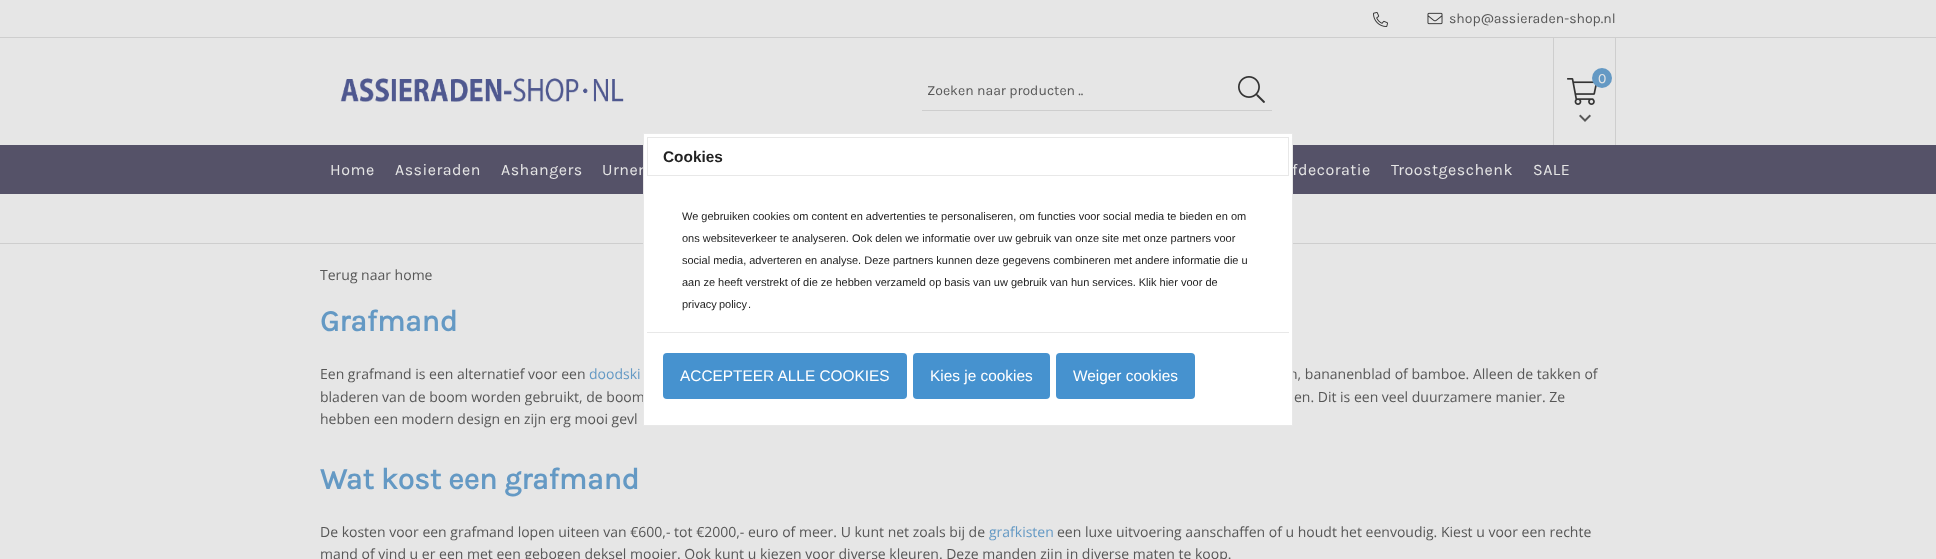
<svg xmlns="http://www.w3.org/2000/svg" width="1936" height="559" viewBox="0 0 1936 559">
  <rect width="100%" height="100%" fill="rgb(230,230,230)"/>
  <rect x="0" y="37" width="1936" height="1" fill="rgb(206,206,206)"/>
  <image x="1373" y="12" width="15" height="15" href="pic1.png"/>
  <image x="1427" y="12" width="16" height="13" href="pic2.png"/>
  <text x="1449" y="23" font-family="Karla" font-size="14" fill="rgb(87,87,87)">shop@assieraden-shop.nl</text>
  <image x="340" y="78" width="284" height="24" href="pic3.png"/>
  <rect x="922" y="110" width="350" height="1" fill="rgb(206,206,206)"/>
  <text x="927" y="95" font-family="Karla" font-size="14" fill="rgb(87,87,87)">Zoeken naar producten ..</text>
  <image x="1238" y="76" width="27" height="27" href="pic4.png"/>
  <rect x="1615" y="38" width="1" height="107" fill="rgb(206,206,206)"/>
  <rect x="1553" y="38" width="1" height="107" fill="rgb(206,206,206)"/>
  <image x="1567" y="78" width="30" height="27" href="pic5.png"/>
  <image x="1579" y="114" width="12" height="8" href="pic6.png"/>
  <circle cx="1602" cy="78" r="10" fill="rgb(100,153,196)"/>
  <text x="1598" y="83" font-family="Karla" font-size="14" fill="rgb(230,230,230)">0</text>
  <rect x="0" y="145" width="1936" height="49" fill="rgb(85,82,104)"/>
  <g font-family="Karla" font-size="16" letter-spacing="0.5" fill="rgb(230,230,230)">
    <text x="330" y="175">Home</text>
    <text x="395" y="175">Assieraden</text>
    <text x="501" y="175">Ashangers</text>
    <text x="602" y="175">Urnen</text>
    <text x="1292" y="175">fdecoratie</text>
    <text x="1391" y="175">Troostgeschenk</text>
    <text x="1533" y="175">SALE</text>
  </g>
  <rect x="0" y="243" width="1936" height="1" fill="rgb(206,206,206)"/>
  <g font-family="Open Sans" font-size="14" fill="rgb(87,87,87)">
    <text x="1289" y="379">n, bananenblad of bamboe. Alleen de takken of</text>
    <text x="320" y="402">bladeren van de boom worden gebruikt, de boom</text>
  </g>
  <rect x="643.5" y="133.5" width="649" height="292" fill="rgb(255,255,255)" stroke="rgb(232,232,232)"/>
  <rect x="647.5" y="137.5" width="641" height="38" fill="none" stroke="rgb(232,232,232)"/>
  <text x="663" y="162" font-family="Liberation Sans" font-size="15.4" font-weight="bold" fill="rgb(34,34,34)">Cookies</text>
  <g font-family="Liberation Sans" font-size="11" fill="rgb(34,34,34)">
    <text x="682" y="220">We gebruiken cookies om content en advertenties te personaliseren, om functies voor social media te bieden en om</text>
    <text x="682" y="242">ons websiteverkeer te analyseren. Ook delen we informatie over uw gebruik van onze site met onze partners voor</text>
    <text x="682" y="264">social media, adverteren en analyse. Deze partners kunnen deze gegevens combineren met andere informatie die u</text>
    <text x="682" y="286">aan ze heeft verstrekt of die ze hebben verzameld op basis van uw gebruik van hun services. Klik hier voor de</text>
    <text x="682" y="308" word-spacing="-1">privacy policy</text>
    <text x="748" y="308">.</text>
  </g>
  <rect x="647" y="332" width="642" height="1" fill="rgb(232,232,232)"/>
  <rect x="663" y="353" width="244" height="46" rx="4" fill="rgb(70,146,207)"/>
  <text x="680" y="381" font-family="Liberation Sans" font-size="15.4" fill="rgb(255,255,255)">ACCEPTEER ALLE COOKIES</text>
  <rect x="913" y="353" width="137" height="46" rx="4" fill="rgb(70,146,207)"/>
  <text x="930" y="381" font-family="Liberation Sans" font-size="15.4" fill="rgb(255,255,255)">Kies je cookies</text>
  <rect x="1056" y="353" width="139" height="46" rx="4" fill="rgb(70,146,207)"/>
  <text x="1073" y="381" font-family="Liberation Sans" font-size="15.4" fill="rgb(255,255,255)">Weiger cookies</text>
  <text x="320" y="280" font-family="Open Sans" font-size="14" fill="rgb(87,87,87)">Terug naar home</text>
  <text x="320" y="331" font-family="Karla" font-size="30" font-weight="bold" fill="rgb(100,153,196)">Grafmand</text>
  <text x="320" y="379" font-family="Open Sans" font-size="14" fill="rgb(87,87,87)">Een grafmand is een alternatief voor een</text>
  <text x="589" y="379" font-family="Open Sans" font-size="14" fill="rgb(100,153,196)">doodski</text>
  <g font-family="Open Sans" font-size="14" fill="rgb(87,87,87)">
    <text x="1294" y="402">en. Dit is een veel duurzamere manier. Ze</text>
    <text x="320" y="424">hebben een modern design en zijn erg mooi gevl</text>
  </g>
  <text x="320" y="489" font-family="Karla" font-size="30" font-weight="bold" fill="rgb(100,153,196)">Wat kost een grafmand</text>
  <text x="320" y="537" font-family="Open Sans" font-size="14" fill="rgb(87,87,87)">De kosten voor een grafmand lopen uiteen van €600,- tot €2000,- euro of meer. U kunt net zoals bij de</text>
  <text x="989" y="537" font-family="Open Sans" font-size="14" fill="rgb(100,153,196)">grafkisten</text>
  <g font-family="Open Sans" font-size="14" fill="rgb(87,87,87)">
    <text x="1057" y="537">een luxe uitvoering aanschaffen of u houdt het eenvoudig. Kiest u voor een rechte</text>
    <text x="320" y="559">mand of vind u er een met een gebogen deksel mooier. Ook kunt u kiezen voor diverse kleuren. Deze manden zijn in diverse maten te koop.</text>
  </g>
</svg>
